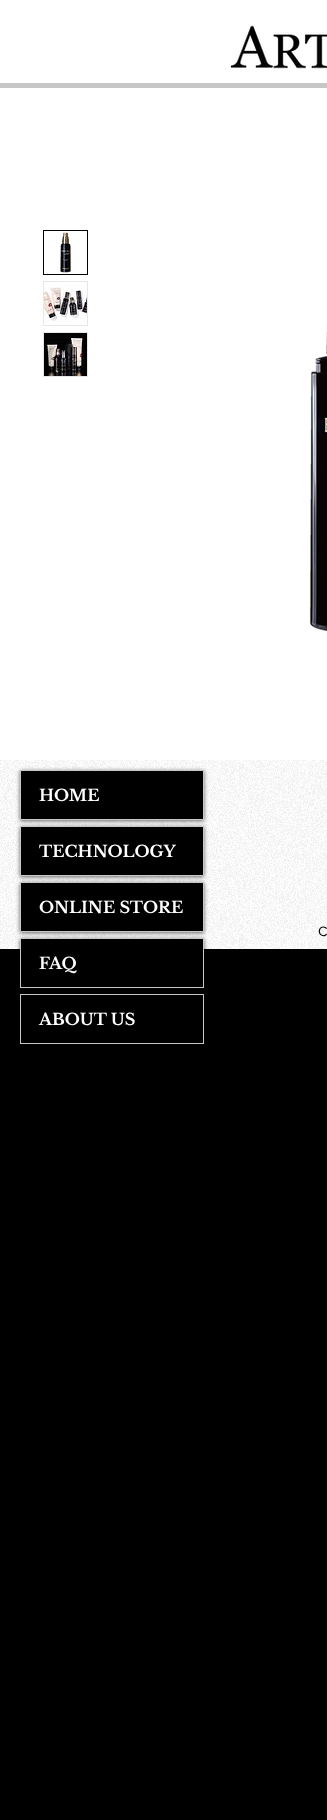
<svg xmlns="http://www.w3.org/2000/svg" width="327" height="1820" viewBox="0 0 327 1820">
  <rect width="100%" height="100%" fill="rgb(0,0,0)"/>
  <rect x="0" y="0" width="327" height="83" fill="rgb(255,255,255)"/>
  <rect x="0" y="83" width="327" height="5" fill="rgb(199,199,199)"/>
  <image x="230" y="25" width="97" height="44" href="pic1.png"/>
  <rect x="0" y="88" width="327" height="861" fill="rgb(255,255,255)"/>
  <rect x="43.5" y="230.5" width="44" height="44" fill="none" stroke="rgb(0,0,0)"/>
  <image x="60" y="232" width="11" height="41" href="pic2.png"/>
  <rect x="43.5" y="281.5" width="44" height="44" fill="none" stroke="rgb(232,230,230)"/>
  <image x="44" y="287" width="43" height="35" href="pic3.png"/>
  <rect x="43.5" y="332.5" width="44" height="44" fill="none" stroke="rgb(232,230,230)"/>
  <image x="44" y="333" width="43" height="43" href="pic4.png"/>
  <image x="309" y="326" width="18" height="306" href="pic5.png"/>
  <image x="0" y="760" width="327" height="189" href="pic6.png"/>
  <rect x="20" y="771" width="184" height="50" fill="rgba(0,0,0,0.6)" filter="blur(2px)"/>
  <rect x="20.5" y="770.5" width="183" height="49" fill="rgb(0,0,0)" stroke="rgb(199,199,199)"/>
  <text x="39" y="801" font-family="Libre Baskerville" font-size="16" font-weight="bold" fill="rgb(255,255,255)">HOME</text>
  <rect x="20" y="827" width="184" height="50" fill="rgba(0,0,0,0.6)" filter="blur(2px)"/>
  <rect x="20.5" y="826.5" width="183" height="49" fill="rgb(0,0,0)" stroke="rgb(199,199,199)"/>
  <text x="39" y="857" font-family="Libre Baskerville" font-size="16" font-weight="bold" fill="rgb(255,255,255)">TECHNOLOGY</text>
  <rect x="20" y="883" width="184" height="50" fill="rgba(0,0,0,0.6)" filter="blur(2px)"/>
  <rect x="20.5" y="882.5" width="183" height="49" fill="rgb(0,0,0)" stroke="rgb(199,199,199)"/>
  <text x="39" y="913" font-family="Libre Baskerville" font-size="16" font-weight="bold" fill="rgb(255,255,255)">ONLINE STORE</text>
  <rect x="20" y="939" width="184" height="50" fill="rgba(0,0,0,0.6)" filter="blur(2px)"/>
  <rect x="21" y="939" width="182" height="10" fill="rgb(0,0,0)"/>
  <rect x="20.5" y="938.5" width="183" height="49" fill="none" stroke="rgb(199,199,199)"/>
  <text x="39" y="969" font-family="Libre Baskerville" font-size="16" font-weight="bold" fill="rgb(255,255,255)">FAQ</text>
  <rect x="20.5" y="994.5" width="183" height="49" fill="none" stroke="rgb(199,199,199)"/>
  <text x="39" y="1025" font-family="Libre Baskerville" font-size="16" font-weight="bold" fill="rgb(255,255,255)">ABOUT US</text>
  <text x="318" y="936" font-family="'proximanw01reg'" font-size="14" fill="rgb(0,0,0)">C</text>
</svg>
